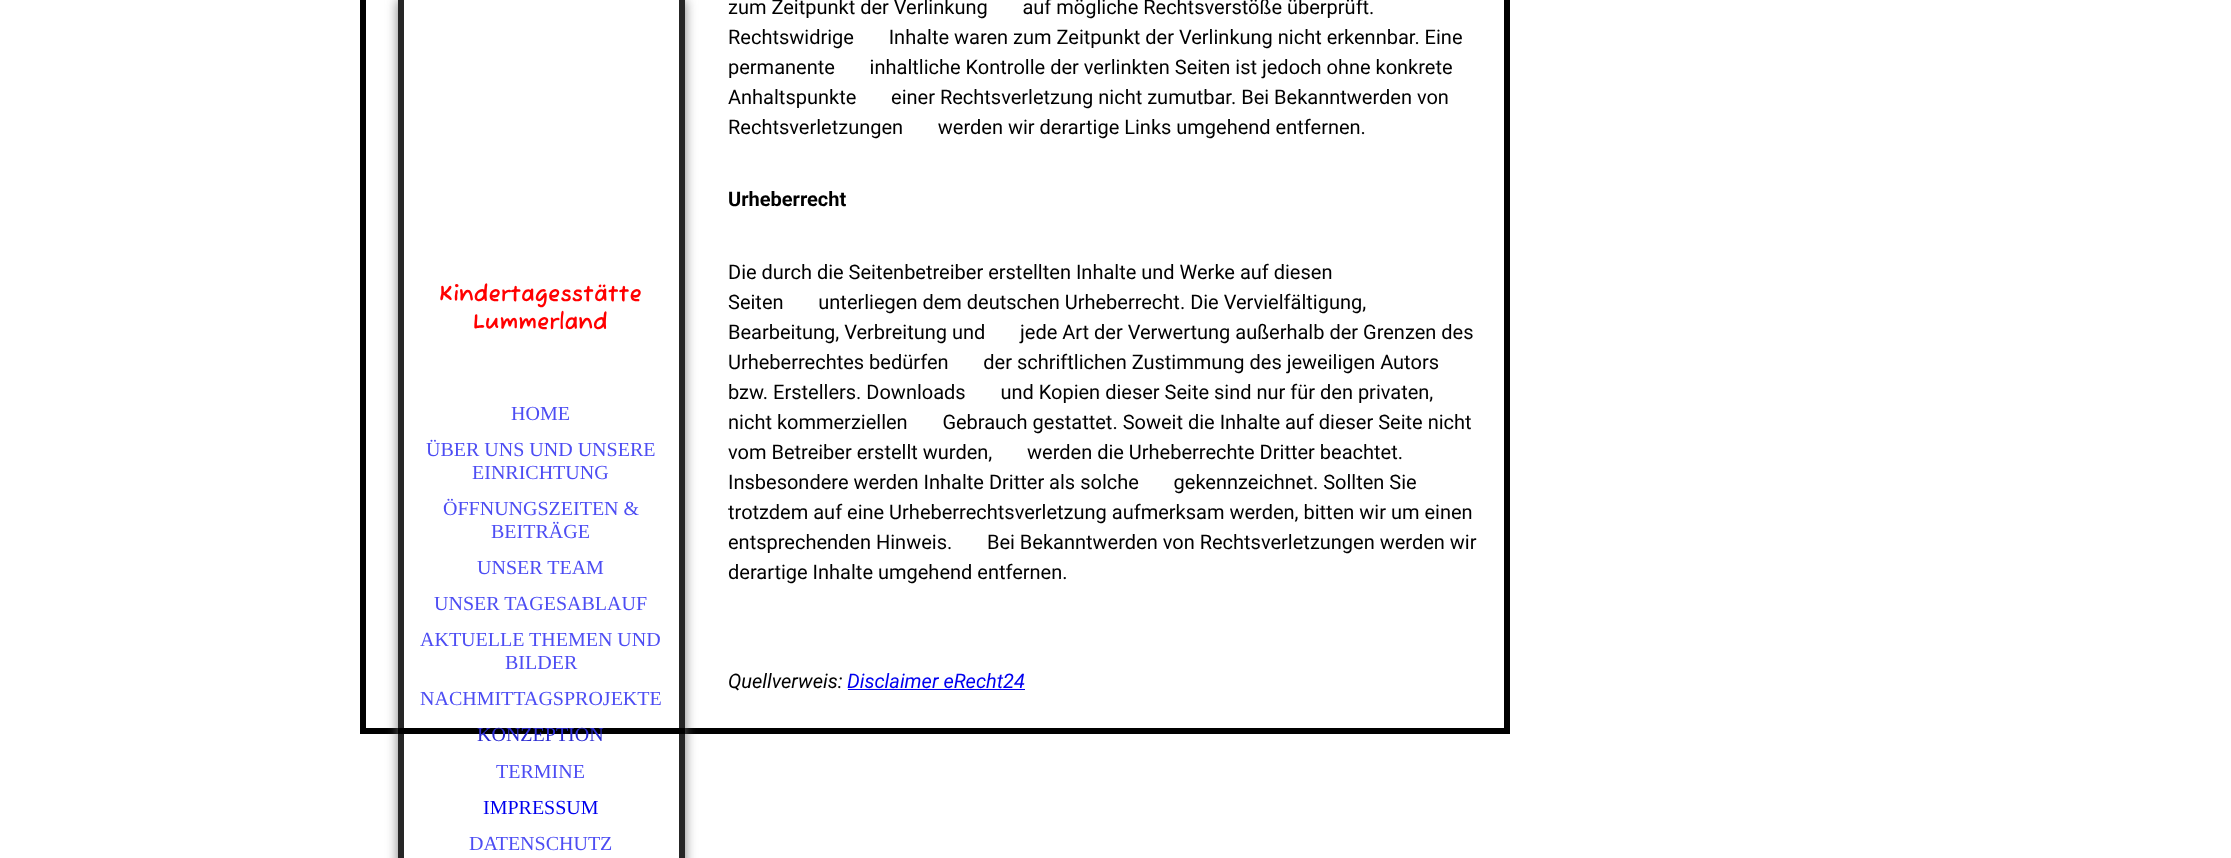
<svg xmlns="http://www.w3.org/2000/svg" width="2231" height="858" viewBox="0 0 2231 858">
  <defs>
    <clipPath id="clip1"><path d="M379 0H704V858H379ZM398 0H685V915H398Z" clip-rule="evenodd"/></clipPath>
  </defs>
  <rect width="100%" height="100%" fill="rgb(255,255,255)"/>
  <rect x="363" y="-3" width="1144" height="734" fill="none" stroke="rgb(0,0,0)" stroke-width="6"/>
  <g clip-path="url(#clip1)">
    <rect x="398" y="0" width="287" height="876" fill="rgba(102,102,102,0.85)" filter="blur(6px)"/>
  </g>
  <rect x="679" y="0" width="6" height="858" fill="rgba(0,0,0,0.85)"/>
  <rect x="398" y="0" width="6" height="858" fill="rgba(0,0,0,0.85)"/>
  <g font-family="Roboto" font-size="20" fill="rgb(0,0,0)">
    <text xml:space="preserve"><tspan x="728" y="14">zum Zeitpunkt der Verlinkung       auf mögliche Rechtsverstöße überprüft.</tspan><tspan x="728" y="44">Rechtswidrige       Inhalte waren zum Zeitpunkt der Verlinkung nicht erkennbar. Eine</tspan><tspan x="728" y="74">permanente       inhaltliche Kontrolle der verlinkten Seiten ist jedoch ohne konkrete</tspan><tspan x="728" y="104">Anhaltspunkte       einer Rechtsverletzung nicht zumutbar. Bei Bekanntwerden von</tspan><tspan x="728" y="134">Rechtsverletzungen       werden wir derartige Links umgehend entfernen.</tspan></text>
  </g>
  <text x="728" y="206" font-family="Roboto" font-size="20" font-weight="bold" fill="rgb(0,0,0)">Urheberrecht</text>
  <g font-family="Roboto" font-size="20" fill="rgb(0,0,0)">
    <text xml:space="preserve"><tspan x="728" y="279">Die durch die Seitenbetreiber erstellten Inhalte und Werke auf diesen</tspan><tspan x="728" y="309">Seiten       unterliegen dem deutschen Urheberrecht. Die Vervielfältigung,</tspan><tspan x="728" y="339">Bearbeitung, Verbreitung und       jede Art der Verwertung außerhalb der Grenzen des</tspan><tspan x="728" y="369">Urheberrechtes bedürfen       der schriftlichen Zustimmung des jeweiligen Autors</tspan><tspan x="728" y="399">bzw. Erstellers. Downloads       und Kopien dieser Seite sind nur für den privaten,</tspan><tspan x="728" y="429">nicht kommerziellen       Gebrauch gestattet. Soweit die Inhalte auf dieser Seite nicht</tspan><tspan x="728" y="459">vom Betreiber erstellt wurden,       werden die Urheberrechte Dritter beachtet.</tspan><tspan x="728" y="489">Insbesondere werden Inhalte Dritter als solche       gekennzeichnet. Sollten Sie</tspan><tspan x="728" y="519">trotzdem auf eine Urheberrechtsverletzung aufmerksam werden, bitten wir um einen</tspan><tspan x="728" y="549">entsprechenden Hinweis.       Bei Bekanntwerden von Rechtsverletzungen werden wir</tspan><tspan x="728" y="579">derartige Inhalte umgehend entfernen.</tspan></text>
  </g>
  <text x="728" y="688" font-family="Roboto" font-size="20" font-style="italic" fill="rgb(0,0,0)">Quellverweis:</text>
  <text x="847" y="688" font-family="Roboto" font-size="20" font-style="italic" fill="rgb(0,0,238)">Disclaimer eRecht24</text>
  <rect x="848" y="689" width="177" height="1" fill="rgb(0,0,238)"/>
  <g font-family="Fuzzy Bubbles" font-size="22.5" font-weight="bold" fill="rgb(255,0,0)">
    <text x="439" y="301">Kindertagesstätte</text>
    <text x="473" y="329">Lummerland</text>
  </g>
  <g font-family="Liberation Serif" font-size="20" fill="rgb(77,77,243)">
    <text x="511" y="420">HOME</text>
    <text x="426" y="456">ÜBER UNS UND UNSERE</text>
    <text x="472" y="479">EINRICHTUNG</text>
    <text x="443" y="515">ÖFFNUNGSZEITEN &amp;</text>
    <text x="491" y="538">BEITRÄGE</text>
    <text x="477" y="574">UNSER TEAM</text>
    <text x="434" y="610">UNSER TAGESABLAUF</text>
    <text x="420" y="646">AKTUELLE THEMEN UND</text>
    <text x="505" y="669">BILDER</text>
    <text x="420" y="705">NACHMITTAGSPROJEKTE</text>
  </g>
  <text x="477" y="741" font-family="Liberation Serif" font-size="20" fill="rgb(43,43,209)">KONZEPTION</text>
  <text x="496" y="778" font-family="Liberation Serif" font-size="20" fill="rgb(77,77,243)">TERMINE</text>
  <text x="483" y="814" font-family="Liberation Serif" font-size="20" fill="rgb(0,0,238)">IMPRESSUM</text>
  <text x="469" y="850" font-family="Liberation Serif" font-size="20" fill="rgb(77,77,243)">DATENSCHUTZ</text>
</svg>
